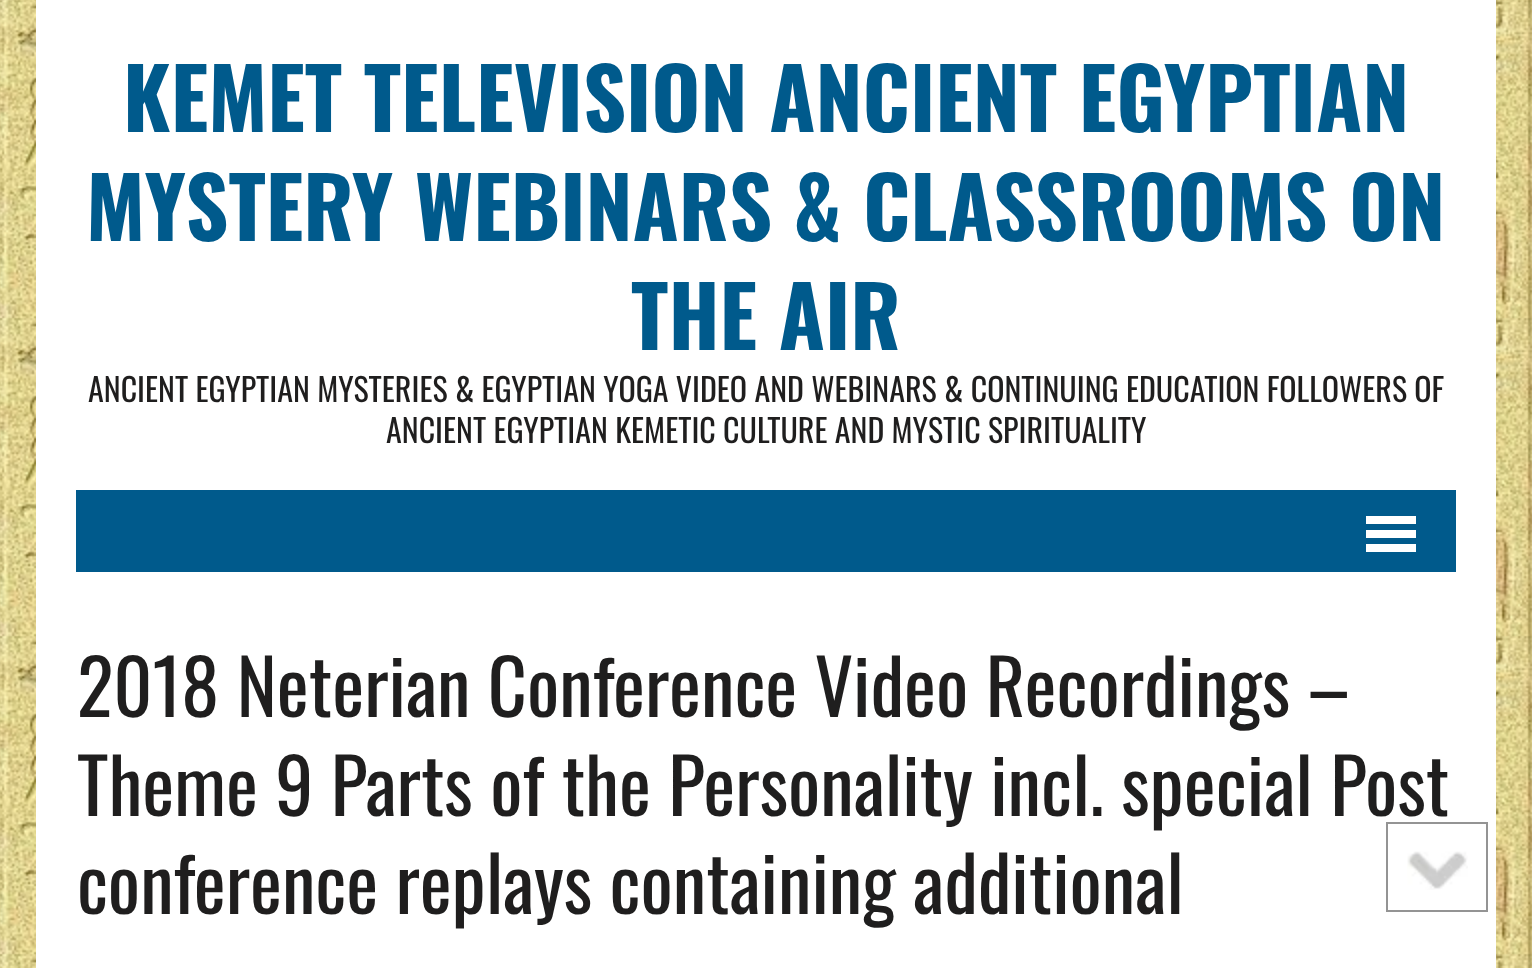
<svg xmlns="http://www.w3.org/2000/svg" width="1532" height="968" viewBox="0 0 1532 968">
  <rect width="100%" height="100%" fill="rgb(255,255,255)"/>
  <image x="0" y="0" width="1532" height="968" href="pic1.png"/>
  <rect x="36" y="0" width="1460" height="968" fill="rgb(255,255,255)"/>
  <g font-family="Oswald" font-size="84" font-weight="bold" fill="rgb(0,90,140)">
    <text x="123" y="132">KEMET TELEVISION ANCIENT EGYPTIAN</text>
    <text x="86" y="241">MYSTERY WEBINARS &amp; CLASSROOMS ON</text>
    <text x="631" y="350">THE AIR</text>
  </g>
  <g font-family="Oswald" font-size="32" fill="rgb(31,30,30)">
    <text x="88" y="402">ANCIENT EGYPTIAN MYSTERIES &amp; EGYPTIAN YOGA VIDEO AND WEBINARS &amp; CONTINUING EDUCATION FOLLOWERS OF</text>
    <text x="386" y="443">ANCIENT EGYPTIAN KEMETIC CULTURE AND MYSTIC SPIRITUALITY</text>
  </g>
  <rect x="76" y="490" width="1380" height="82" fill="rgb(0,90,140)"/>
  <rect x="1366" y="516" width="50" height="8" fill="rgb(255,255,255)"/>
  <rect x="1366" y="530" width="50" height="8" fill="rgb(255,255,255)"/>
  <rect x="1366" y="544" width="50" height="8" fill="rgb(255,255,255)"/>
  <g font-family="Oswald" font-size="76" fill="rgb(31,30,30)">
    <text>
      <tspan x="77" y="717">2018 Neterian Conference Video Recordings –</tspan>
      <tspan x="77" y="816">Theme 9 Parts of the Personality incl. special Post</tspan>
      <tspan x="77" y="914">conference replays containing additional</tspan>
    </text>
  </g>
  <image x="1407" y="851" width="61" height="39" href="pic2.png"/>
  <rect x="1387" y="823" width="100" height="88" fill="none" stroke="rgb(148,148,148)" stroke-width="2"/>
</svg>
